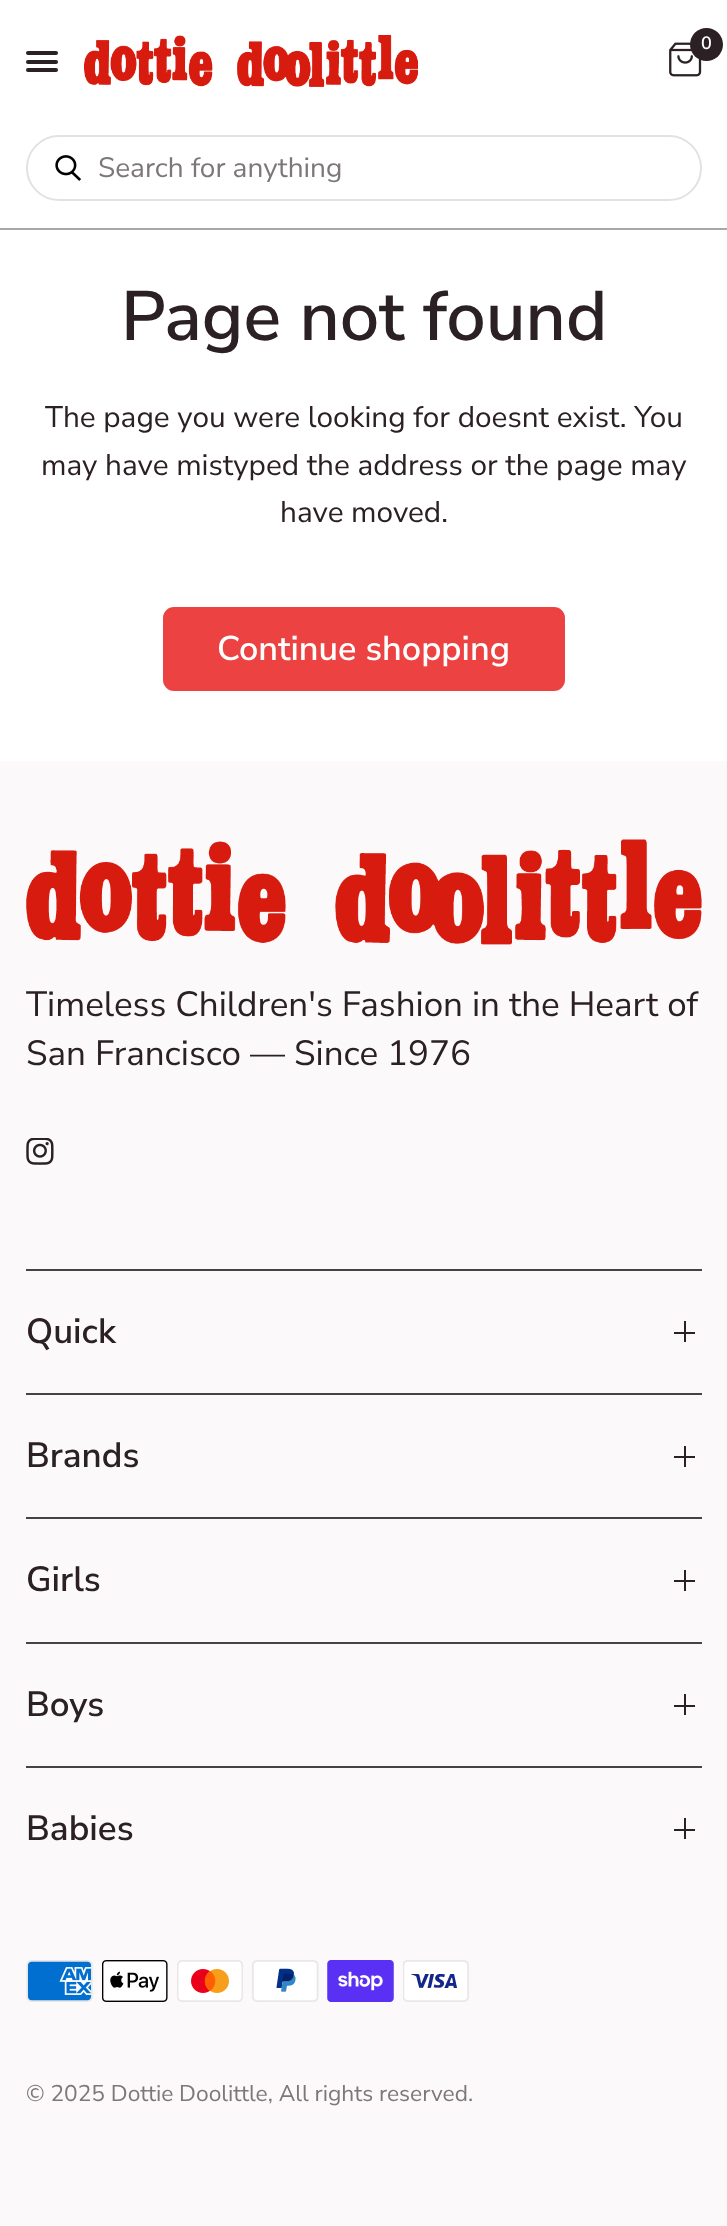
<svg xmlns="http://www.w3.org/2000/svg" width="727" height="2226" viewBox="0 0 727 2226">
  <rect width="100%" height="100%" fill="rgb(255,255,255)"/>
  <rect x="0" y="228" width="727" height="2" fill="rgb(167,167,167)"/>
  <image x="84" y="35" width="334" height="52" href="pic1.png"/>
  <image x="669" y="42" width="33" height="35" href="pic2.png"/>
  <circle cx="706.5" cy="44.5" r="16.5" fill="rgb(43,32,36)"/>
  <text x="701" y="49" font-family="Nunito Sans" font-size="18" font-weight="600" fill="rgb(255,255,255)">0</text>
  <rect x="26" y="51" width="32" height="4" rx="2" fill="rgb(43,32,36)"/>
  <rect x="26" y="60" width="32" height="4" rx="2" fill="rgb(43,32,36)"/>
  <rect x="26" y="68" width="32" height="4" rx="2" fill="rgb(43,32,36)"/>
  <image x="55" y="155" width="27" height="26" href="pic3.png"/>
  <rect x="27" y="136" width="674" height="64" rx="32" fill="none" stroke="rgb(226,226,226)" stroke-width="2"/>
  <text x="98" y="177" font-family="Nunito Sans" font-size="28" fill="rgb(126,119,122)">Search for anything</text>
  <text x="121" y="340" font-family="Nunito Sans" font-size="70" font-weight="600" fill="rgb(43,32,36)">Page not found</text>
  <g font-family="Nunito Sans" font-size="29.75" fill="rgb(43,32,36)">
    <text x="45" y="427">The page you were looking for doesnt exist. You</text>
    <text x="41" y="475">may have mistyped the address or the page may</text>
    <text x="280" y="522">have moved.</text>
  </g>
  <rect x="164" y="608" width="400" height="82" rx="10" fill="rgb(236,66,66)" stroke="rgb(236,66,66)" stroke-width="2"/>
  <text x="217" y="660" font-family="Nunito Sans" font-size="34.25" font-weight="600" fill="rgb(255,255,255)">Continue shopping</text>
  <rect x="0" y="761" width="727" height="1465" fill="rgb(251,249,250)"/>
  <image x="26" y="839" width="676" height="106" href="pic4.png"/>
  <g font-family="Nunito Sans" font-size="35" fill="rgb(43,32,36)">
    <text>
      <tspan x="26" y="1016">Timeless Children's Fashion in the Heart of</tspan>
      <tspan x="26" y="1065">San Francisco — Since 1976</tspan>
    </text>
  </g>
  <image x="26" y="1138" width="28" height="27" href="pic5.png"/>
  <rect x="26" y="1269" width="676" height="2" fill="rgb(68,68,68)"/>
  <text x="26" y="1343" font-family="Nunito Sans" font-size="35" font-weight="600" fill="rgb(43,32,36)">Quick</text>
  <rect x="684" y="1321" width="2" height="21" fill="rgb(43,32,36)"/>
  <rect x="674" y="1332" width="21" height="2" fill="rgb(43,32,36)"/>
  <rect x="26" y="1393" width="676" height="2" fill="rgb(68,68,68)"/>
  <text x="26" y="1467" font-family="Nunito Sans" font-size="35" font-weight="600" fill="rgb(43,32,36)">Brands</text>
  <rect x="684" y="1446" width="2" height="21" fill="rgb(43,32,36)"/>
  <rect x="674" y="1456" width="21" height="2" fill="rgb(43,32,36)"/>
  <rect x="26" y="1517" width="676" height="2" fill="rgb(68,68,68)"/>
  <text x="26" y="1591" font-family="Nunito Sans" font-size="35" font-weight="600" fill="rgb(43,32,36)">Girls</text>
  <rect x="684" y="1570" width="2" height="21" fill="rgb(43,32,36)"/>
  <rect x="674" y="1580" width="21" height="2" fill="rgb(43,32,36)"/>
  <rect x="26" y="1642" width="676" height="2" fill="rgb(68,68,68)"/>
  <text x="26" y="1716" font-family="Nunito Sans" font-size="35" font-weight="600" fill="rgb(43,32,36)">Boys</text>
  <rect x="684" y="1694" width="2" height="21" fill="rgb(43,32,36)"/>
  <rect x="674" y="1705" width="21" height="2" fill="rgb(43,32,36)"/>
  <rect x="26" y="1766" width="676" height="2" fill="rgb(68,68,68)"/>
  <text x="26" y="1840" font-family="Nunito Sans" font-size="35" font-weight="600" fill="rgb(43,32,36)">Babies</text>
  <rect x="684" y="1818" width="2" height="21" fill="rgb(43,32,36)"/>
  <rect x="674" y="1829" width="21" height="2" fill="rgb(43,32,36)"/>
  <image x="26" y="1960" width="67" height="42" href="pic6.png"/>
  <image x="102" y="1960" width="66" height="42" href="pic7.png"/>
  <image x="177" y="1960" width="66" height="42" href="pic8.png"/>
  <image x="252" y="1960" width="67" height="42" href="pic9.png"/>
  <image x="327" y="1960" width="67" height="42" href="pic10.png"/>
  <image x="403" y="1960" width="66" height="42" href="pic11.png"/>
  <text x="26" y="2101" font-family="Nunito Sans" font-size="22.75" fill="rgb(126,119,122)">© 2025 Dottie Doolittle, All rights reserved.</text>
</svg>
